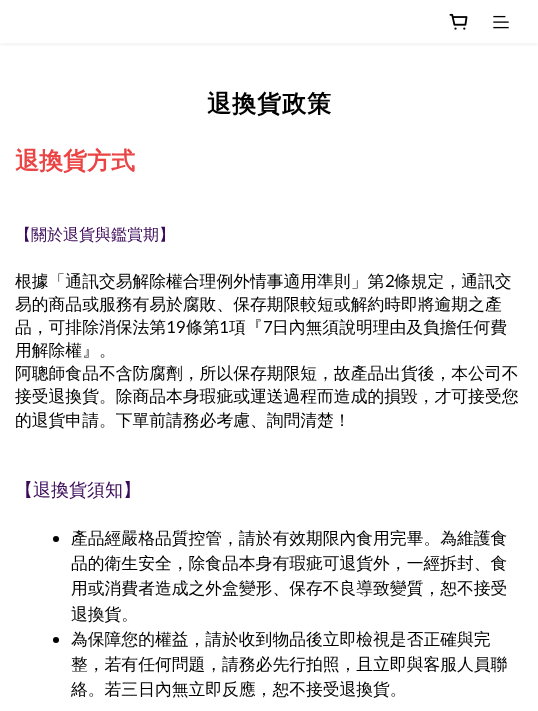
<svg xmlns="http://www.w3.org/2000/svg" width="538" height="711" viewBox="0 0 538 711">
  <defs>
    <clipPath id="clip1"><rect x="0" y="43" width="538" height="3"/></clipPath>
  </defs>
  <rect width="100%" height="100%" fill="rgb(255,255,255)"/>
  <g clip-path="url(#clip1)">
    <rect x="0" y="2" width="538" height="43" fill="rgba(0,0,0,0.06)" filter="blur(3px)"/>
  </g>
  <image x="449" y="13" width="19" height="17" href="pic1.png"/>
  <image x="493" y="15" width="16" height="14" href="pic2.png"/>
  <text x="207" y="112" font-family="WenQuanYi Zen Hei" font-size="24" font-weight="bold" letter-spacing="1" fill="rgb(0,0,0)">退換貨政策</text>
  <text x="15" y="169" font-family="WenQuanYi Zen Hei" font-size="24" font-weight="bold" fill="rgb(235,68,68)">退換貨方式</text>
  <text x="15" y="240" font-family="WenQuanYi Zen Hei" font-size="16" font-weight="500" fill="rgb(59,9,89)">【關於退貨與鑑賞期】</text>
  <text x="15" y="287" font-family="WenQuanYi Zen Hei" font-size="16.8" font-weight="500" fill="rgb(0,0,0)">根據「通訊交易解除權合理例外情事適用準則」第</text>
  <text x="385" y="287" font-family="Lato" font-size="16.8" fill="rgb(0,0,0)">2</text>
  <g font-family="WenQuanYi Zen Hei" font-size="16.8" font-weight="500" fill="rgb(0,0,0)">
    <text x="394" y="287">條規定，通訊交</text>
    <text>
      <tspan x="15" y="310">易的商品或服務有易於腐敗、保存期限較短或解約時即將逾期之產</tspan>
      <tspan x="15" y="333">品，可排除消保法第</tspan>
    </text>
  </g>
  <text x="166" y="333" font-family="Lato" font-size="16.8" fill="rgb(0,0,0)">19</text>
  <text x="186" y="333" font-family="WenQuanYi Zen Hei" font-size="16.8" font-weight="500" fill="rgb(0,0,0)">條第</text>
  <text x="219" y="333" font-family="Lato" font-size="16.8" fill="rgb(0,0,0)">1</text>
  <text x="229" y="333" font-family="WenQuanYi Zen Hei" font-size="16.8" font-weight="500" fill="rgb(0,0,0)">項『</text>
  <text x="263" y="333" font-family="Lato" font-size="16.8" fill="rgb(0,0,0)">7</text>
  <g font-family="WenQuanYi Zen Hei" font-size="16.8" font-weight="500" fill="rgb(0,0,0)">
    <text x="272" y="333">日內無須說明理由及負擔任何費</text>
    <text>
      <tspan x="15" y="356">用解除權』。</tspan>
      <tspan x="15" y="379">阿聰師食品不含防腐劑，所以保存期限短，故產品出貨後，本公司不</tspan>
      <tspan x="15" y="402">接受退換貨。除商品本身瑕疵或運送過程而造成的損毀，才可接受您</tspan>
      <tspan x="15" y="426">的退貨申請。下單前請務必考慮、詢問清楚！</tspan>
    </text>
  </g>
  <text x="15" y="496" font-family="WenQuanYi Zen Hei" font-size="18" font-weight="500" fill="rgb(59,9,89)">【退換貨須知】</text>
  <circle cx="56" cy="539" r="3" fill="rgb(0,0,0)"/>
  <g font-family="WenQuanYi Zen Hei" font-size="16.8" font-weight="500" fill="rgb(0,0,0)">
    <text>
      <tspan x="71" y="544">產品經嚴格品質控管，請於有效期限內食用完畢。為維護食</tspan>
      <tspan x="71" y="569">品的衛生安全，除食品本身有瑕疵可退貨外，一經拆封、食</tspan>
      <tspan x="71" y="594">用或消費者造成之外盒變形、保存不良導致變質，恕不接受</tspan>
      <tspan x="71" y="620">退換貨。</tspan>
    </text>
  </g>
  <circle cx="56" cy="640" r="3" fill="rgb(0,0,0)"/>
  <g font-family="WenQuanYi Zen Hei" font-size="16.8" font-weight="500" fill="rgb(0,0,0)">
    <text>
      <tspan x="71" y="645">為保障您的權益，請於收到物品後立即檢視是否正確與完</tspan>
      <tspan x="71" y="670">整，若有任何問題，請務必先行拍照，且立即與客服人員聯</tspan>
      <tspan x="71" y="695">絡。若三日內無立即反應，恕不接受退換貨。</tspan>
    </text>
  </g>
</svg>
